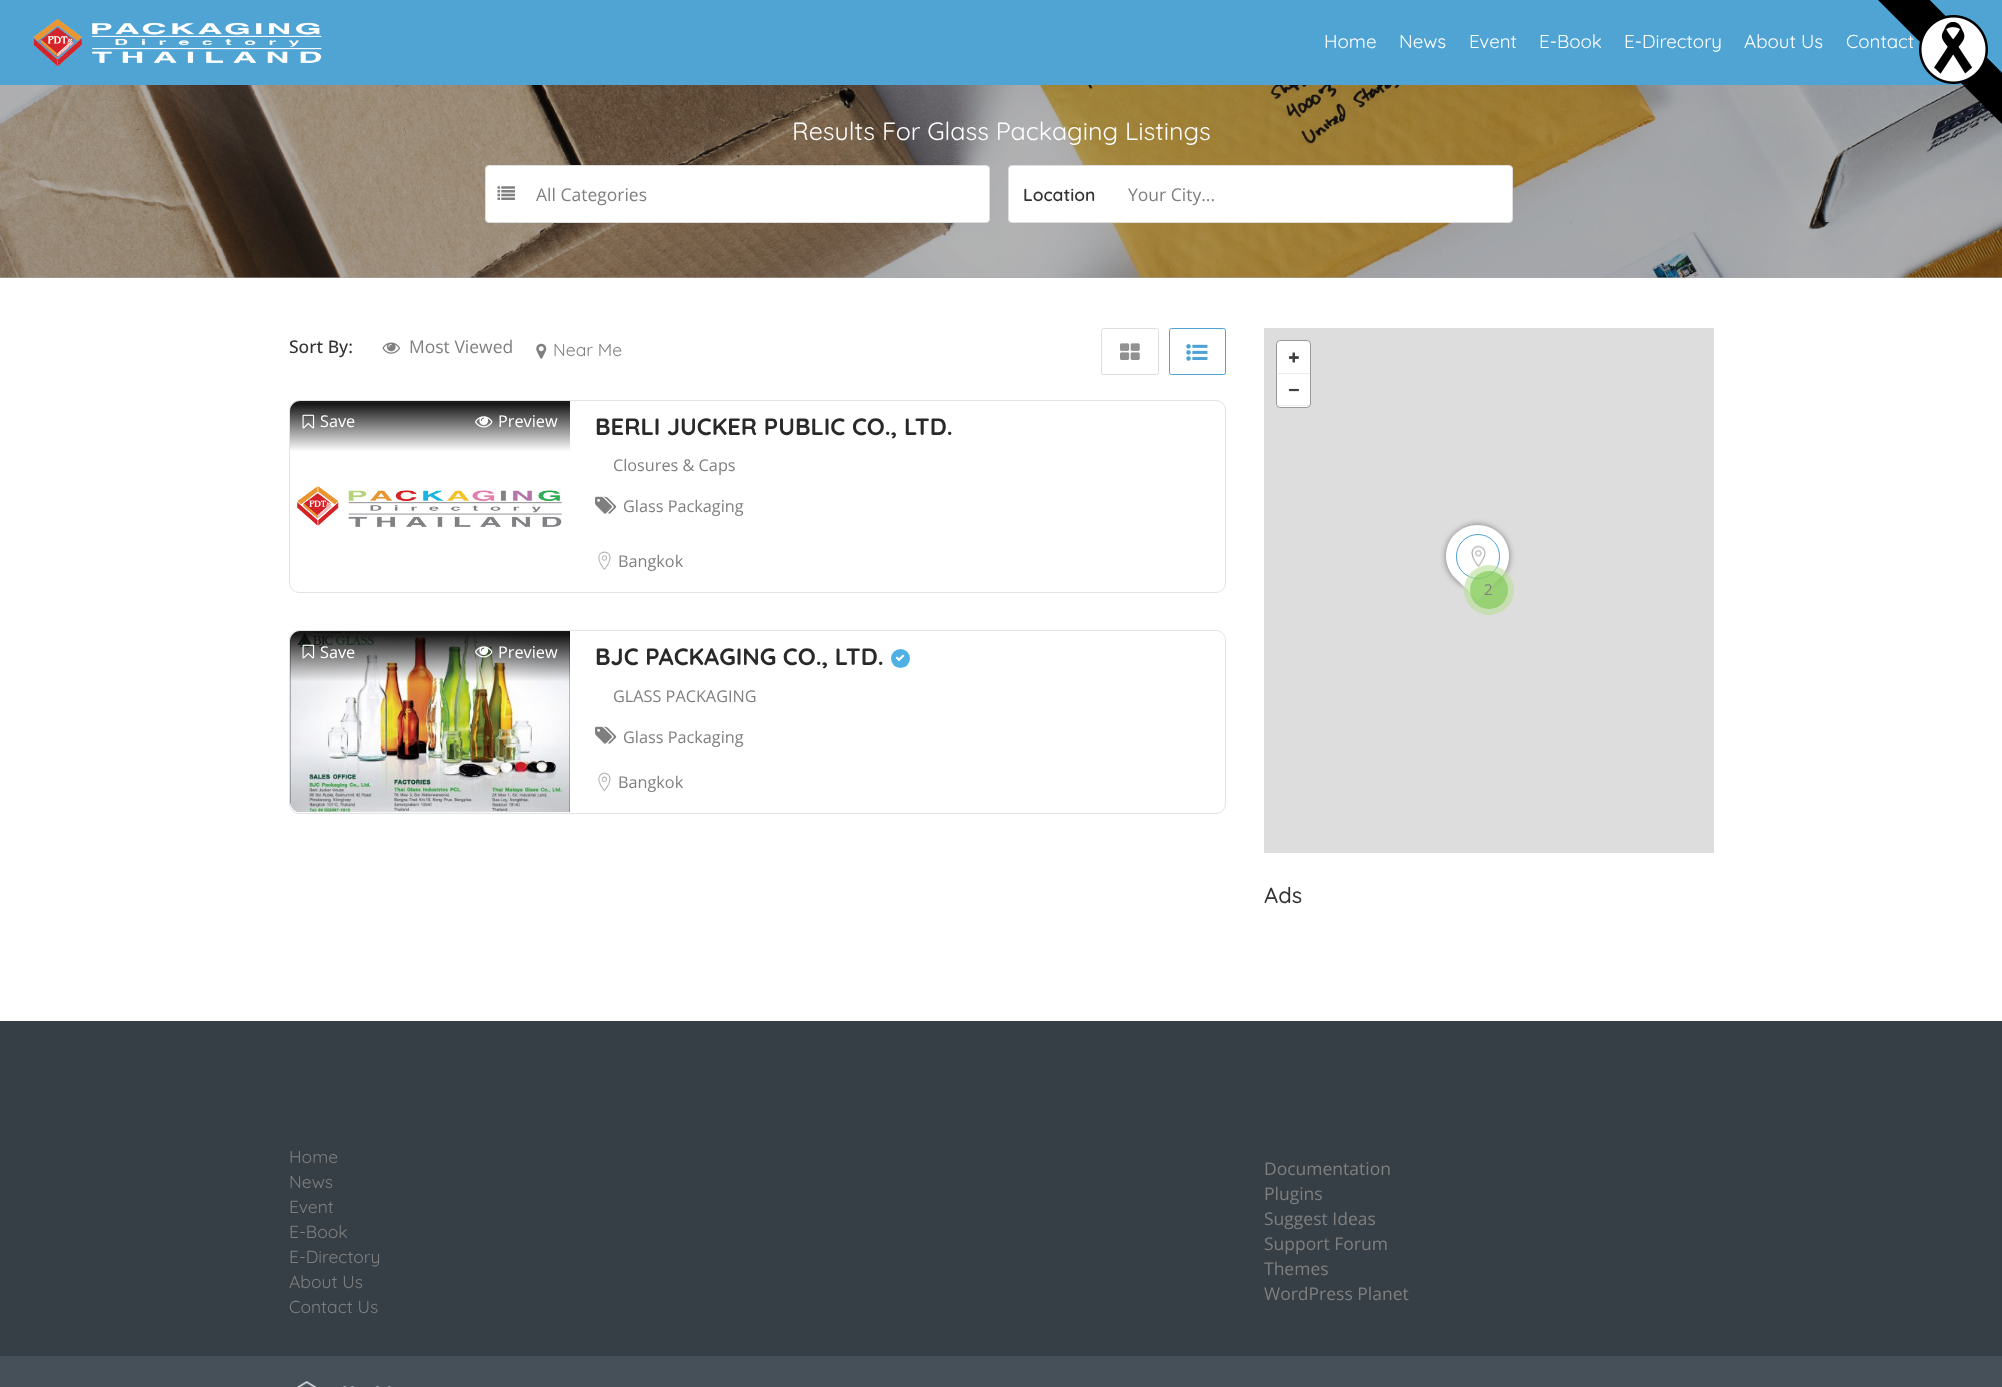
<svg xmlns="http://www.w3.org/2000/svg" width="2002" height="1387" viewBox="0 0 2002 1387">
  <defs>
    <linearGradient id="g1" gradientUnits="userSpaceOnUse" x1="430" y1="456" x2="430" y2="401"><stop offset="0.08" stop-color="rgb(0,0,0)" stop-opacity="0"/><stop offset="0.94" stop-color="rgb(0,0,0)" stop-opacity="0.9"/></linearGradient>
    <linearGradient id="g2" gradientUnits="userSpaceOnUse" x1="430" y1="686" x2="430" y2="631"><stop offset="0.08" stop-color="rgb(0,0,0)" stop-opacity="0"/><stop offset="0.94" stop-color="rgb(0,0,0)" stop-opacity="0.9"/></linearGradient>
  </defs>
  <rect width="100%" height="100%" fill="rgb(255,255,255)"/>
  <rect x="0" y="0" width="2002" height="85" fill="rgb(79,164,212)"/>
  <image x="33" y="18" width="289" height="49" href="pic1.png"/>
  <g font-family="Quicksand" font-size="18.75" fill="rgb(255,255,255)">
    <text x="1324" y="48">Home</text>
    <text x="1399" y="48">News</text>
    <text x="1469" y="48">Event</text>
    <text x="1539" y="48">E-Book</text>
    <text x="1624" y="48">E-Directory</text>
    <text x="1744" y="48">About Us</text>
    <text x="1846" y="48">Contact</text>
  </g>
  <rect x="0" y="277" width="2002" height="1" fill="rgb(168,170,172)"/>
  <image x="0" y="85" width="2002" height="193" href="pic2.png"/>
  <text x="792" y="140" font-family="Quicksand" font-size="25" fill="rgb(255,255,255)">Results For Glass Packaging Listings</text>
  <rect x="485.5" y="165.5" width="504" height="57" rx="3.5" fill="rgb(255,255,255)" stroke="rgb(222,222,222)"/>
  <image x="497" y="186" width="18" height="14" href="pic3.png"/>
  <text x="536" y="201" font-family="Open Sans" font-size="17.5" fill="rgb(127,127,127)">All Categories</text>
  <rect x="1008.5" y="165.5" width="504" height="57" rx="3.5" fill="rgb(255,255,255)" stroke="rgb(222,222,222)"/>
  <text x="1023" y="201" font-family="Quicksand" font-size="17.5" font-weight="600" fill="rgb(51,51,51)">Location</text>
  <text x="1128" y="201" font-family="Open Sans" font-size="17.5" fill="rgb(127,127,127)">Your City...</text>
  <path d="M1878-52L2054 125L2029 151L1852-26Z" fill="rgb(0,0,0)"/>
  <image x="1919" y="15" width="69" height="69" href="pic4.png"/>
  <text x="289" y="353" font-family="Open Sans" font-size="17.5" font-weight="500" fill="rgb(51,51,51)">Sort By:</text>
  <image x="382" y="342" width="18" height="12" href="pic5.png"/>
  <text x="409" y="353" font-family="Open Sans" font-size="17.5" fill="rgb(127,127,127)">Most Viewed</text>
  <image x="536" y="343" width="11" height="16" href="pic6.png"/>
  <text x="553" y="356" font-family="Quicksand" font-size="17.5" fill="rgb(127,127,127)">Near Me</text>
  <rect x="1101.5" y="328.5" width="57" height="46" rx="2" fill="none" stroke="rgb(222,222,222)"/>
  <image x="1120" y="343" width="20" height="17" href="pic7.png"/>
  <rect x="1169.5" y="328.5" width="56" height="46" rx="2" fill="none" stroke="rgb(78,163,212)"/>
  <image x="1186" y="344" width="22" height="17" href="pic8.png"/>
  <rect x="289.5" y="400.5" width="936" height="192" rx="9.5" fill="none" stroke="rgb(227,227,227)"/>
  <path d="M300 401H570V456H290V411C290 405.5 294.5 401 300 401Z" fill="url(#g1)"/>
  <image x="302" y="414" width="13" height="15" href="pic9.png"/>
  <text x="320" y="427" font-family="Open Sans" font-size="16.25" fill="rgb(255,255,255)">Save</text>
  <image x="475" y="416" width="18" height="12" href="pic10.png"/>
  <text x="498" y="427" font-family="Open Sans" font-size="16.25" fill="rgb(255,255,255)">Preview</text>
  <image x="294" y="486" width="269" height="42" href="pic11.png"/>
  <text x="595" y="435" font-family="Quicksand" font-size="23.75" font-weight="bold" fill="rgb(41,41,41)">BERLI JUCKER PUBLIC CO., LTD.</text>
  <text x="613" y="471" font-family="Open Sans" font-size="16.25" fill="rgb(127,127,127)">Closures &amp; Caps</text>
  <image x="595" y="496" width="22" height="18" href="pic12.png"/>
  <text x="623" y="512" font-family="Open Sans" font-size="16.25" fill="rgb(127,127,127)">Glass Packaging</text>
  <image x="598" y="551" width="13" height="19" href="pic13.png"/>
  <text x="618" y="567" font-family="Open Sans" font-size="16.25" fill="rgb(127,127,127)">Bangkok</text>
  <rect x="289.5" y="630.5" width="936" height="183" rx="9.5" fill="none" stroke="rgb(227,227,227)"/>
  <image x="290" y="631" width="280" height="182" href="pic14.png"/>
  <path d="M300 631H570V686H290V641C290 635.5 294.5 631 300 631Z" fill="url(#g2)"/>
  <image x="302" y="644" width="13" height="15" href="pic15.png"/>
  <text x="320" y="658" font-family="Open Sans" font-size="16.25" fill="rgb(255,255,255)">Save</text>
  <image x="475" y="646" width="18" height="12" href="pic16.png"/>
  <text x="498" y="658" font-family="Open Sans" font-size="16.25" fill="rgb(255,255,255)">Preview</text>
  <text x="595" y="665" font-family="Quicksand" font-size="23.75" font-weight="bold" fill="rgb(41,41,41)">BJC PACKAGING CO., LTD.</text>
  <circle cx="900.5" cy="658.5" r="9.5" fill="rgb(78,176,227)"/>
  <image x="895" y="654" width="10" height="8" href="pic17.png"/>
  <text x="613" y="702" font-family="Open Sans" font-size="16.25" fill="rgb(127,127,127)">GLASS PACKAGING</text>
  <image x="595" y="726" width="22" height="18" href="pic12.png"/>
  <text x="623" y="743" font-family="Open Sans" font-size="16.25" fill="rgb(127,127,127)">Glass Packaging</text>
  <image x="598" y="772" width="13" height="20" href="pic18.png"/>
  <text x="618" y="788" font-family="Open Sans" font-size="16.25" fill="rgb(127,127,127)">Bangkok</text>
  <rect x="1264" y="328" width="450" height="525" fill="rgb(221,221,221)"/>
  <rect x="1276" y="340" width="35" height="68" rx="4" fill="rgb(255,255,255)"/>
  <rect x="1276.5" y="340.5" width="34" height="67" rx="3.5" fill="none" stroke="rgba(0,0,0,0.4)"/>
  <image x="1288" y="352" width="11" height="11" href="pic19.png"/>
  <rect x="1278" y="373" width="32" height="1" fill="rgb(236,236,236)"/>
  <image x="1288" y="388" width="11" height="4" href="pic20.png"/>
  <rect x="1278" y="405" width="32" height="1" fill="rgba(0,0,0,0.08)"/>
  <rect x="1446" y="525" width="63" height="63" rx="31.5" fill="rgba(0,0,0,0.47)" filter="blur(3px)"/>
  <path d="M1455 534C1468 522 1487 522 1500 534C1512 546 1512 566 1500 578L1478 600L1455 578C1443 566 1443 546 1455 534Z" fill="rgb(255,255,255)"/>
  <rect x="1456.5" y="534.5" width="43" height="44" rx="21.5" fill="none" stroke="rgb(78,163,212)"/>
  <image x="1471" y="545" width="15" height="22" href="pic21.png"/>
  <circle cx="1489" cy="590" r="25" fill="rgba(185,224,151,0.6)"/>
  <circle cx="1489" cy="590" r="19" fill="rgba(120,199,74,0.6)"/>
  <text x="1484" y="595" font-family="Open Sans" font-size="15" fill="rgb(127,127,127)">2</text>
  <text x="1264" y="903" font-family="Quicksand" font-size="22" font-weight="500" fill="rgb(51,51,51)">Ads</text>
  <rect x="0" y="1021" width="2002" height="335" fill="rgb(55,63,70)"/>
  <g font-family="Quicksand" font-size="17.5" fill="rgb(127,127,127)">
    <text>
      <tspan x="289" y="1163">Home</tspan>
      <tspan x="289" y="1188">News</tspan>
      <tspan x="289" y="1213">Event</tspan>
      <tspan x="289" y="1238">E-Book</tspan>
      <tspan x="289" y="1263">E-Directory</tspan>
      <tspan x="289" y="1288">About Us</tspan>
      <tspan x="289" y="1313">Contact Us</tspan>
    </text>
  </g>
  <g font-family="Open Sans" font-size="17.5" fill="rgb(127,127,127)">
    <text>
      <tspan x="1264" y="1175">Documentation</tspan>
      <tspan x="1264" y="1200">Plugins</tspan>
      <tspan x="1264" y="1225">Suggest Ideas</tspan>
      <tspan x="1264" y="1250">Support Forum</tspan>
      <tspan x="1264" y="1275">Themes</tspan>
      <tspan x="1264" y="1300">WordPress Planet</tspan>
    </text>
  </g>
  <rect x="0" y="1356" width="2002" height="31" fill="rgb(70,80,89)"/>
  <image x="296" y="1381" width="96" height="6" href="pic22.png"/>
</svg>
